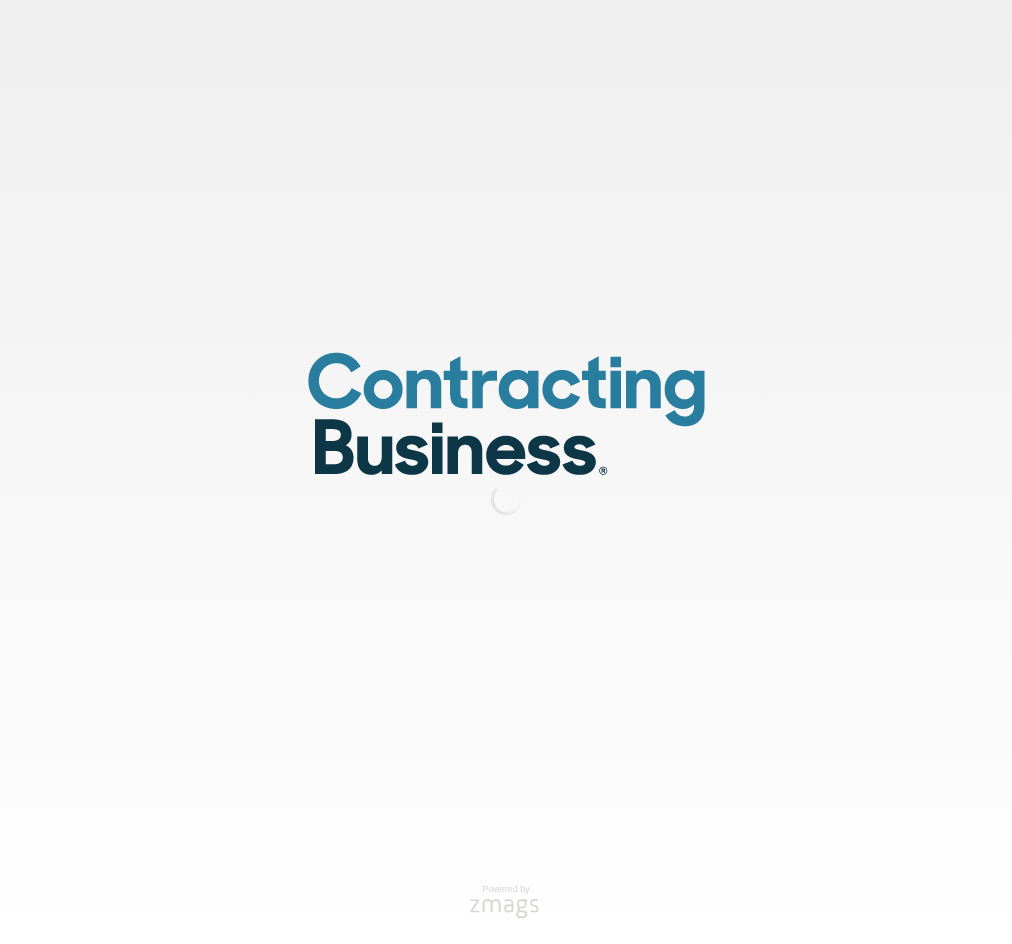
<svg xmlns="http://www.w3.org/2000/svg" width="1012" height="944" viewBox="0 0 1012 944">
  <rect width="100%" height="100%" fill="rgb(255,255,255)"/>
  <image x="0" y="0" width="1012" height="919" href="pic1.png"/>
</svg>
